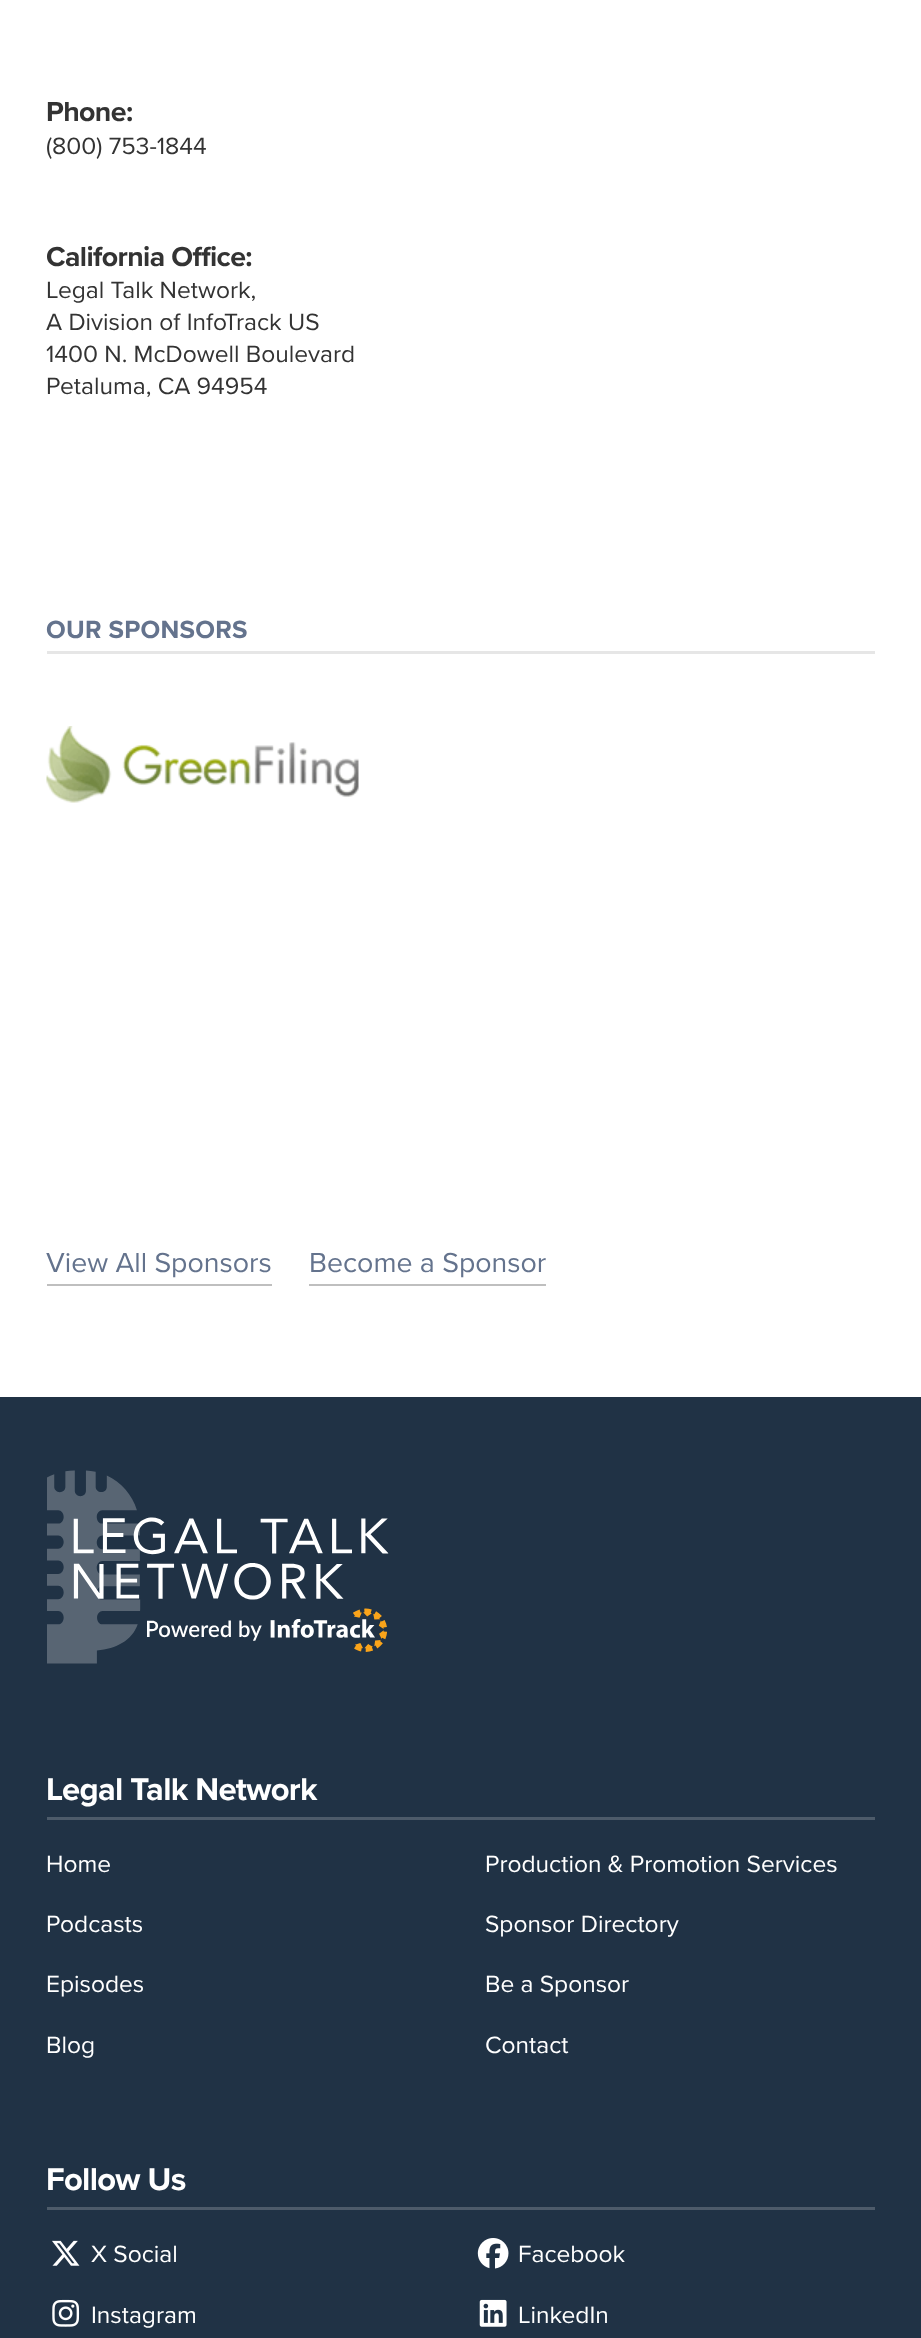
<svg xmlns="http://www.w3.org/2000/svg" width="921" height="2338" viewBox="0 0 921 2338">
  <rect width="100%" height="100%" fill="rgb(255,255,255)"/>
  <text x="46" y="121" font-family="Proxima Nova" font-size="28.5" font-weight="bold" letter-spacing="-0.6" fill="rgb(51,51,51)">Phone:</text>
  <text x="46" y="154" font-family="Proxima Nova" font-size="24.5" fill="rgb(51,51,51)">(800) 753-1844</text>
  <text x="46" y="266" font-family="Proxima Nova" font-size="28.5" font-weight="bold" letter-spacing="-0.6" fill="rgb(51,51,51)">California Office:</text>
  <g font-family="Proxima Nova" font-size="24.5" fill="rgb(51,51,51)">
    <text>
      <tspan x="46" y="298">Legal Talk Network,</tspan>
      <tspan x="46" y="330">A Division of InfoTrack US</tspan>
      <tspan x="46" y="362">1400 N. McDowell Boulevard</tspan>
      <tspan x="46" y="394">Petaluma, CA 94954</tspan>
    </text>
  </g>
  <rect x="47" y="651" width="828" height="3" fill="rgb(230,230,230)"/>
  <text x="46" y="638" font-family="Proxima Nova" font-size="25.75" font-weight="bold" letter-spacing="0.25" fill="rgb(100,115,141)">OUR SPONSORS</text>
  <image x="46" y="726" width="313" height="77" href="pic1.png"/>
  <text x="46" y="1272" font-family="Proxima Nova" font-size="28.5" fill="rgb(100,115,141)">View All Sponsors</text>
  <rect x="47" y="1284" width="225" height="2" fill="rgb(191,191,191)"/>
  <text x="309" y="1272" font-family="Proxima Nova" font-size="28.5" fill="rgb(100,115,141)">Become a Sponsor</text>
  <rect x="309" y="1284" width="237" height="2" fill="rgb(191,191,191)"/>
  <rect x="0" y="1397" width="921" height="941" fill="rgb(32,50,69)"/>
  <image x="47" y="1470" width="342" height="194" href="pic2.png"/>
  <rect x="47" y="1817" width="828" height="3" fill="rgb(77,91,106)"/>
  <text x="46" y="1800" font-family="Proxima Nova" font-size="32.75" font-weight="bold" letter-spacing="-0.7" fill="rgb(255,255,255)">Legal Talk Network</text>
  <g font-family="Proxima Nova" font-size="24.5" fill="rgb(255,255,255)">
    <text x="46" y="1872">Home</text>
    <text x="485" y="1872">Production &amp; Promotion Services</text>
    <text x="46" y="1932">Podcasts</text>
    <text x="485" y="1932">Sponsor Directory</text>
    <text x="46" y="1992">Episodes</text>
    <text x="485" y="1992">Be a Sponsor</text>
    <text x="46" y="2053">Blog</text>
    <text x="485" y="2053">Contact</text>
  </g>
  <rect x="47" y="2207" width="828" height="3" fill="rgb(77,91,106)"/>
  <text x="46" y="2190" font-family="Proxima Nova" font-size="32.75" font-weight="bold" letter-spacing="-0.7" fill="rgb(255,255,255)">Follow Us</text>
  <image x="52" y="2240" width="28" height="26" href="pic3.png"/>
  <text x="91" y="2262" font-family="Proxima Nova" font-size="24.5" fill="rgb(255,255,255)">X Social</text>
  <image x="477" y="2238" width="32" height="31" href="pic4.png"/>
  <text x="518" y="2262" font-family="Proxima Nova" font-size="24.5" fill="rgb(255,255,255)">Facebook</text>
  <image x="52" y="2299" width="28" height="28" href="pic5.png"/>
  <text x="91" y="2323" font-family="Proxima Nova" font-size="24.5" fill="rgb(255,255,255)">Instagram</text>
  <image x="479" y="2299" width="28" height="28" href="pic6.png"/>
  <text x="518" y="2323" font-family="Proxima Nova" font-size="24.5" fill="rgb(255,255,255)">LinkedIn</text>
</svg>
